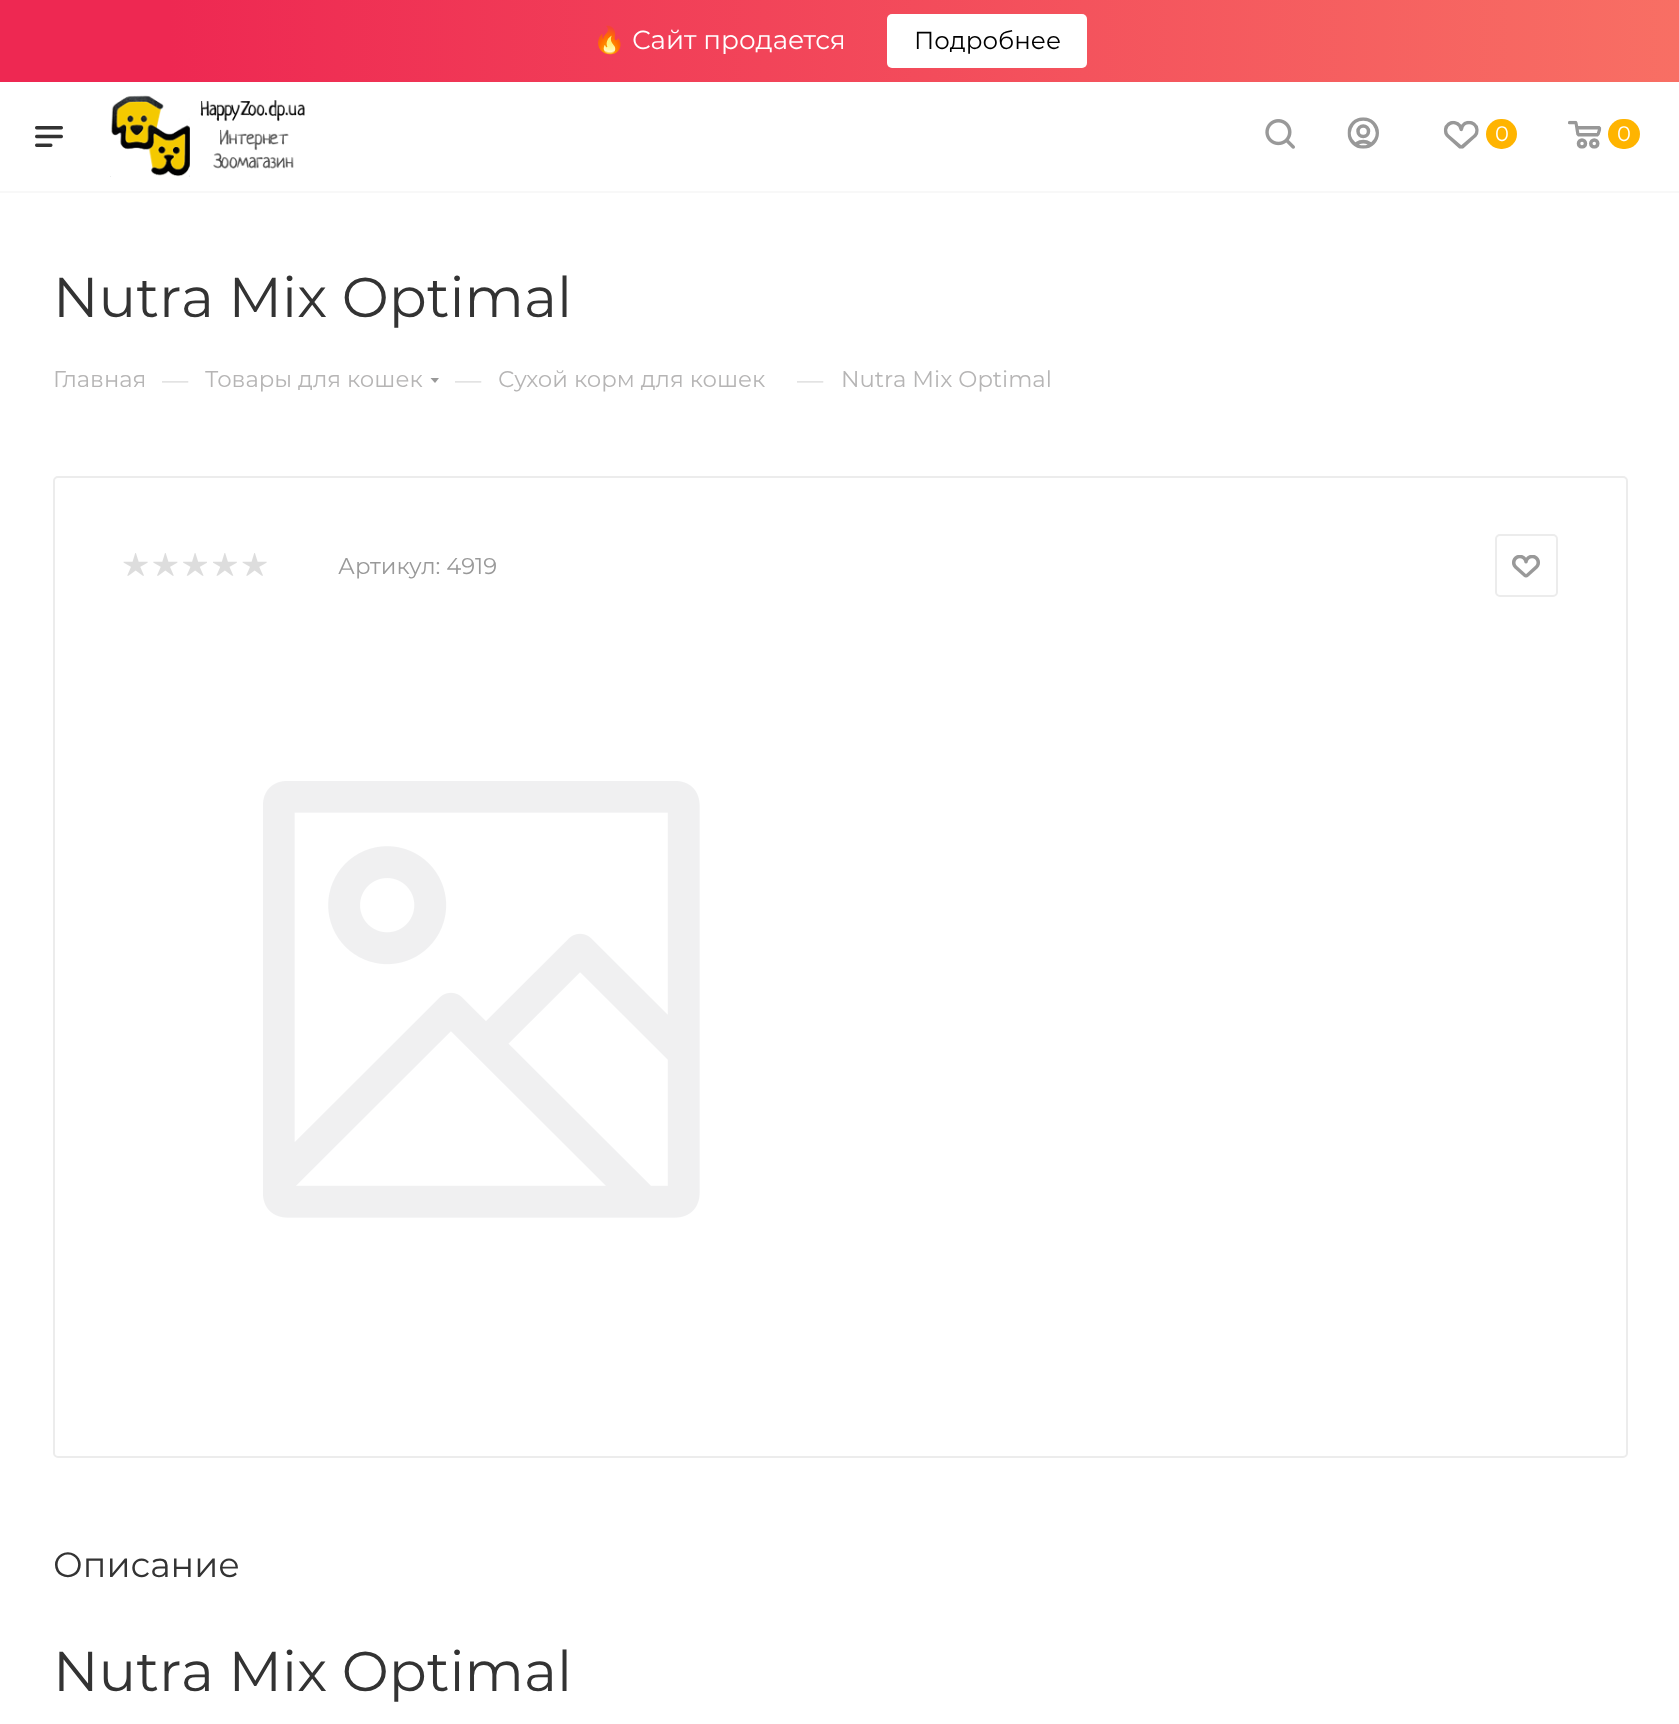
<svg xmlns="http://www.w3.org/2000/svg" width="1679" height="1724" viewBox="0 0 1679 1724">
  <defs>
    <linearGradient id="g1" gradientUnits="userSpaceOnUse" x1="0" y1="41" x2="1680" y2="41"><stop offset="0.1" stop-color="rgb(238,40,82)"/><stop offset="1" stop-color="rgb(248,111,100)"/></linearGradient>
  </defs>
  <rect width="100%" height="100%" fill="rgb(255,255,255)"/>
  <rect x="0" y="0" width="1679" height="82" fill="url(#g1)"/>
  <text x="593" y="49" font-family="Noto Color Emoji" font-size="26.25" fill="rgb(255,255,255)">🔥</text>
  <text x="632" y="49" font-family="Montserrat" font-size="26.25" fill="rgb(255,255,255)">Сайт продается</text>
  <rect x="887" y="14" width="200" height="54" rx="5" fill="rgb(255,255,255)"/>
  <text x="914" y="49" font-family="Montserrat" font-size="24.5" fill="rgb(0,0,0)">Подробнее</text>
  <rect x="0" y="191" width="1679" height="2" fill="rgb(248,248,248)"/>
  <image x="35" y="126" width="28" height="21" href="pic1.png"/>
  <image x="110" y="95" width="195" height="82" href="pic2.png"/>
  <image x="1265" y="119" width="30" height="30" href="pic3.png"/>
  <image x="1347" y="117" width="32" height="32" href="pic4.png"/>
  <image x="1443" y="120" width="36" height="29" href="pic5.png"/>
  <rect x="1486" y="119" width="31" height="30" rx="15" fill="rgb(255,180,0)"/>
  <text x="1495" y="141" font-family="Montserrat" font-size="21" fill="rgb(255,255,255)">0</text>
  <image x="1568" y="120" width="34" height="29" href="pic6.png"/>
  <rect x="1608" y="119" width="32" height="30" rx="15" fill="rgb(255,180,0)"/>
  <text x="1617" y="141" font-family="Montserrat" font-size="21" fill="rgb(255,255,255)">0</text>
  <text x="53" y="317" font-family="Montserrat" font-size="56" fill="rgb(51,51,51)">Nutra Mix Optimal</text>
  <text x="53" y="387" font-family="Montserrat" font-size="22.75" fill="rgb(182,181,181)">Главная</text>
  <text x="162" y="389" font-family="Montserrat" font-size="26.25" fill="rgb(221,221,221)">—</text>
  <text x="205" y="387" font-family="Montserrat" font-size="22.75" fill="rgb(182,181,181)">Товары для кошек</text>
  <path d="M430.5 378H439L435 383Z" fill="rgb(153,153,153)" fill-rule="evenodd"/>
  <text x="455" y="389" font-family="Montserrat" font-size="26.25" fill="rgb(221,221,221)">—</text>
  <text x="498" y="387" font-family="Montserrat" font-size="22.75" fill="rgb(182,181,181)">Сухой корм для кошек</text>
  <text x="797" y="389" font-family="Montserrat" font-size="26.25" fill="rgb(221,221,221)">—</text>
  <text x="841" y="387" font-family="Montserrat" font-size="22.75" fill="rgb(182,181,181)">Nutra Mix Optimal</text>
  <rect x="54" y="477" width="1573" height="980" rx="4" fill="none" stroke="rgb(236,236,236)" stroke-width="2"/>
  <image x="123" y="553" width="25" height="23" href="pic7.png"/>
  <image x="153" y="553" width="25" height="23" href="pic8.png"/>
  <image x="183" y="553" width="24" height="23" href="pic9.png"/>
  <image x="213" y="553" width="24" height="23" href="pic10.png"/>
  <image x="242" y="553" width="25" height="23" href="pic7.png"/>
  <text x="338" y="574" font-family="Montserrat" font-size="22.75" fill="rgb(153,153,153)">Артикул: 4919</text>
  <rect x="1496" y="535" width="61" height="61" rx="4" fill="none" stroke="rgb(236,236,236)" stroke-width="2"/>
  <image x="1512" y="555" width="28" height="23" href="pic11.png"/>
  <image x="263" y="781" width="437" height="437" href="pic12.png"/>
  <text x="53" y="1577" font-family="Montserrat" font-size="35" fill="rgb(51,51,51)">Описание</text>
  <text x="53" y="1691" font-family="Montserrat" font-size="56" fill="rgb(51,51,51)">Nutra Mix Optimal</text>
</svg>
